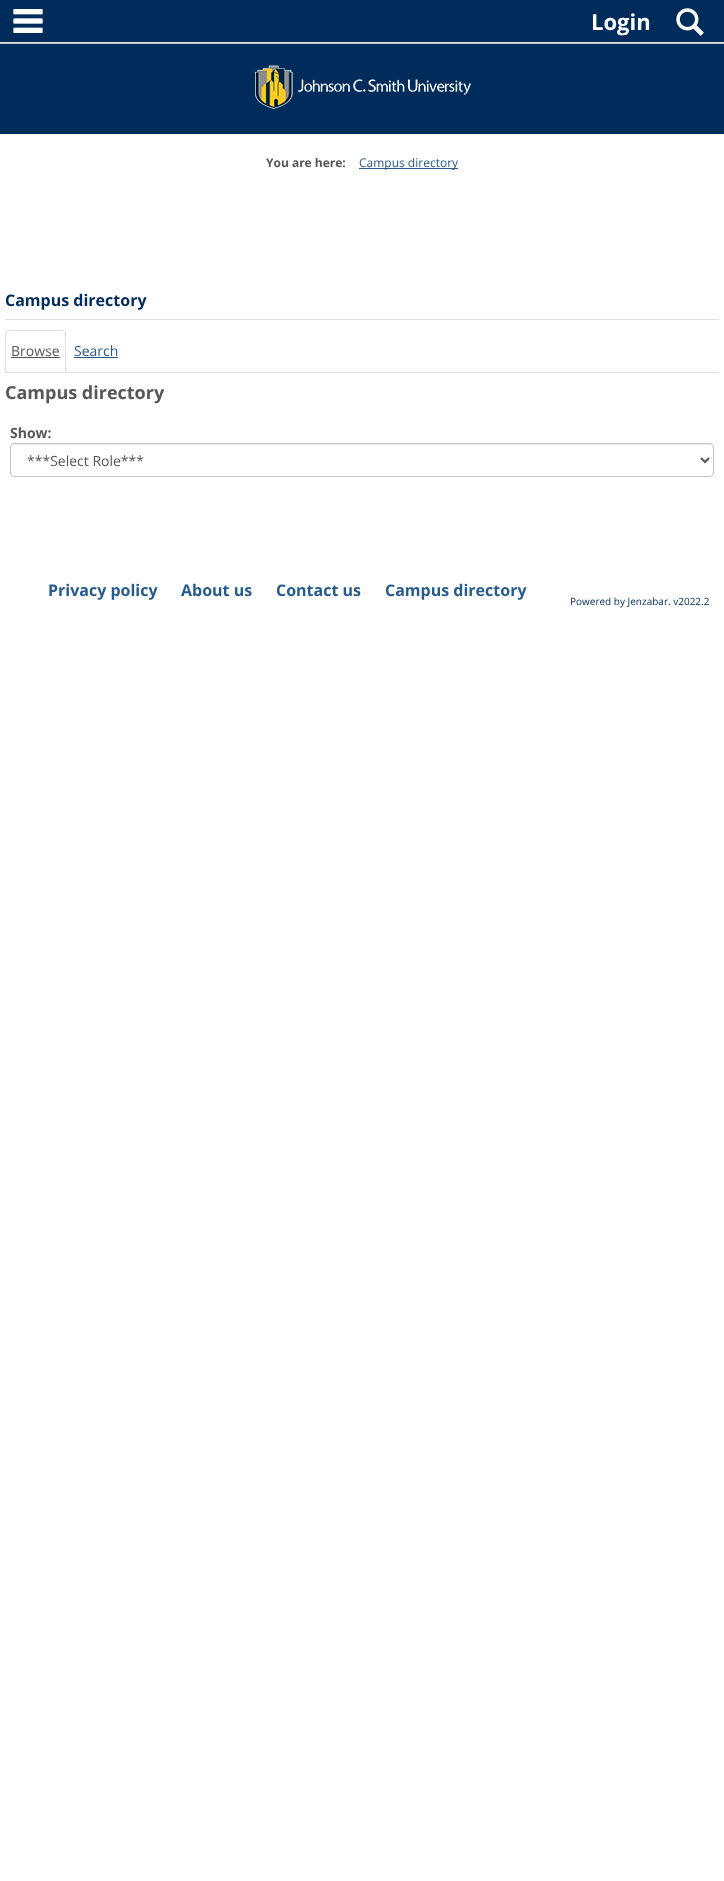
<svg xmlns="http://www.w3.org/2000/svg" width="724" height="1881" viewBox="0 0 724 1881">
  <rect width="100%" height="100%" fill="rgb(255,255,255)"/>
  <rect x="0" y="0" width="724" height="134" fill="rgb(0,44,92)"/>
  <image x="13" y="9" width="30" height="24" href="pic1.png"/>
  <text x="591" y="30" font-family="Open Sans" font-size="22" font-weight="bold" fill="rgb(255,255,255)">Login</text>
  <image x="676" y="8" width="28" height="28" href="pic2.png"/>
  <rect x="0" y="43" width="724" height="1" fill="rgb(197,197,197)"/>
  <image x="255" y="65" width="216" height="44" href="pic3.png"/>
  <rect x="0" y="42" width="724" height="1" fill="rgb(222,222,222)"/>
  <text x="266" y="167" font-family="Open Sans" font-size="12" font-weight="bold" fill="rgb(87,87,87)">You are here:</text>
  <rect x="359" y="168" width="99" height="1" fill="rgb(38,91,140)"/>
  <text x="359" y="167" font-family="Open Sans" font-size="12" fill="rgb(38,91,140)">Campus directory</text>
  <rect x="5" y="319" width="714" height="1" fill="rgb(222,222,222)"/>
  <text x="5" y="306" font-family="Open Sans" font-size="16" font-weight="bold" fill="rgb(0,44,92)">Campus directory</text>
  <rect x="5" y="372" width="714" height="1" fill="rgb(221,221,221)"/>
  <path d="M9 330L6 331L7 332L9 331H63L64 332L65 331L62 330Z" fill="rgb(221,221,221)"/>
  <path d="M66 372V334C66 333 66 332 65 331L64 332C66 334 65 366 65 371ZM5 372L6 371C6 366 5 334 7 332L6 331L5 334Z" fill="rgb(221,221,221)"/>
  <text x="11" y="356" font-family="Open Sans" font-size="14" fill="rgb(87,87,87)">Browse</text>
  <rect x="11" y="357" width="49" height="1" fill="rgb(85,85,85)"/>
  <text x="74" y="356" font-family="Open Sans" font-size="14" fill="rgb(38,91,140)">Search</text>
  <rect x="74" y="357" width="44" height="1" fill="rgb(38,91,140)"/>
  <text x="5" y="399" font-family="Open Sans" font-size="18" font-weight="bold" fill="rgb(87,87,87)">Campus directory</text>
  <text x="10" y="438" font-family="Open Sans" font-size="14" font-weight="bold" fill="rgb(87,87,87)">Show:</text>
  <path d="M14 445H710C712 445 713 446 713 448C713 446 712 444 710 444H14C12 444 11 446 11 448C11 446 12 445 14 445Z" fill="rgb(236,236,236)"/>
  <rect x="10.5" y="443.5" width="703" height="33" rx="3.5" fill="none" stroke="rgb(197,197,197)"/>
  <path d="M701 458L705 462L709 458" fill="none" stroke="rgb(85,85,85)" stroke-width="2"/>
  <text x="27" y="466" font-family="Open Sans" font-size="14" fill="rgb(87,87,87)">***Select Role***</text>
  <g font-family="Open Sans" font-size="16" font-weight="bold" fill="rgb(38,91,140)">
    <text x="48" y="596">Privacy policy</text>
    <text x="181" y="596">About us</text>
    <text x="276" y="596">Contact us</text>
    <text x="385" y="596">Campus directory</text>
  </g>
  <text x="570" y="605" font-family="Open Sans" font-size="10" fill="rgb(0,44,92)">Powered by Jenzabar. v2022.2</text>
</svg>
